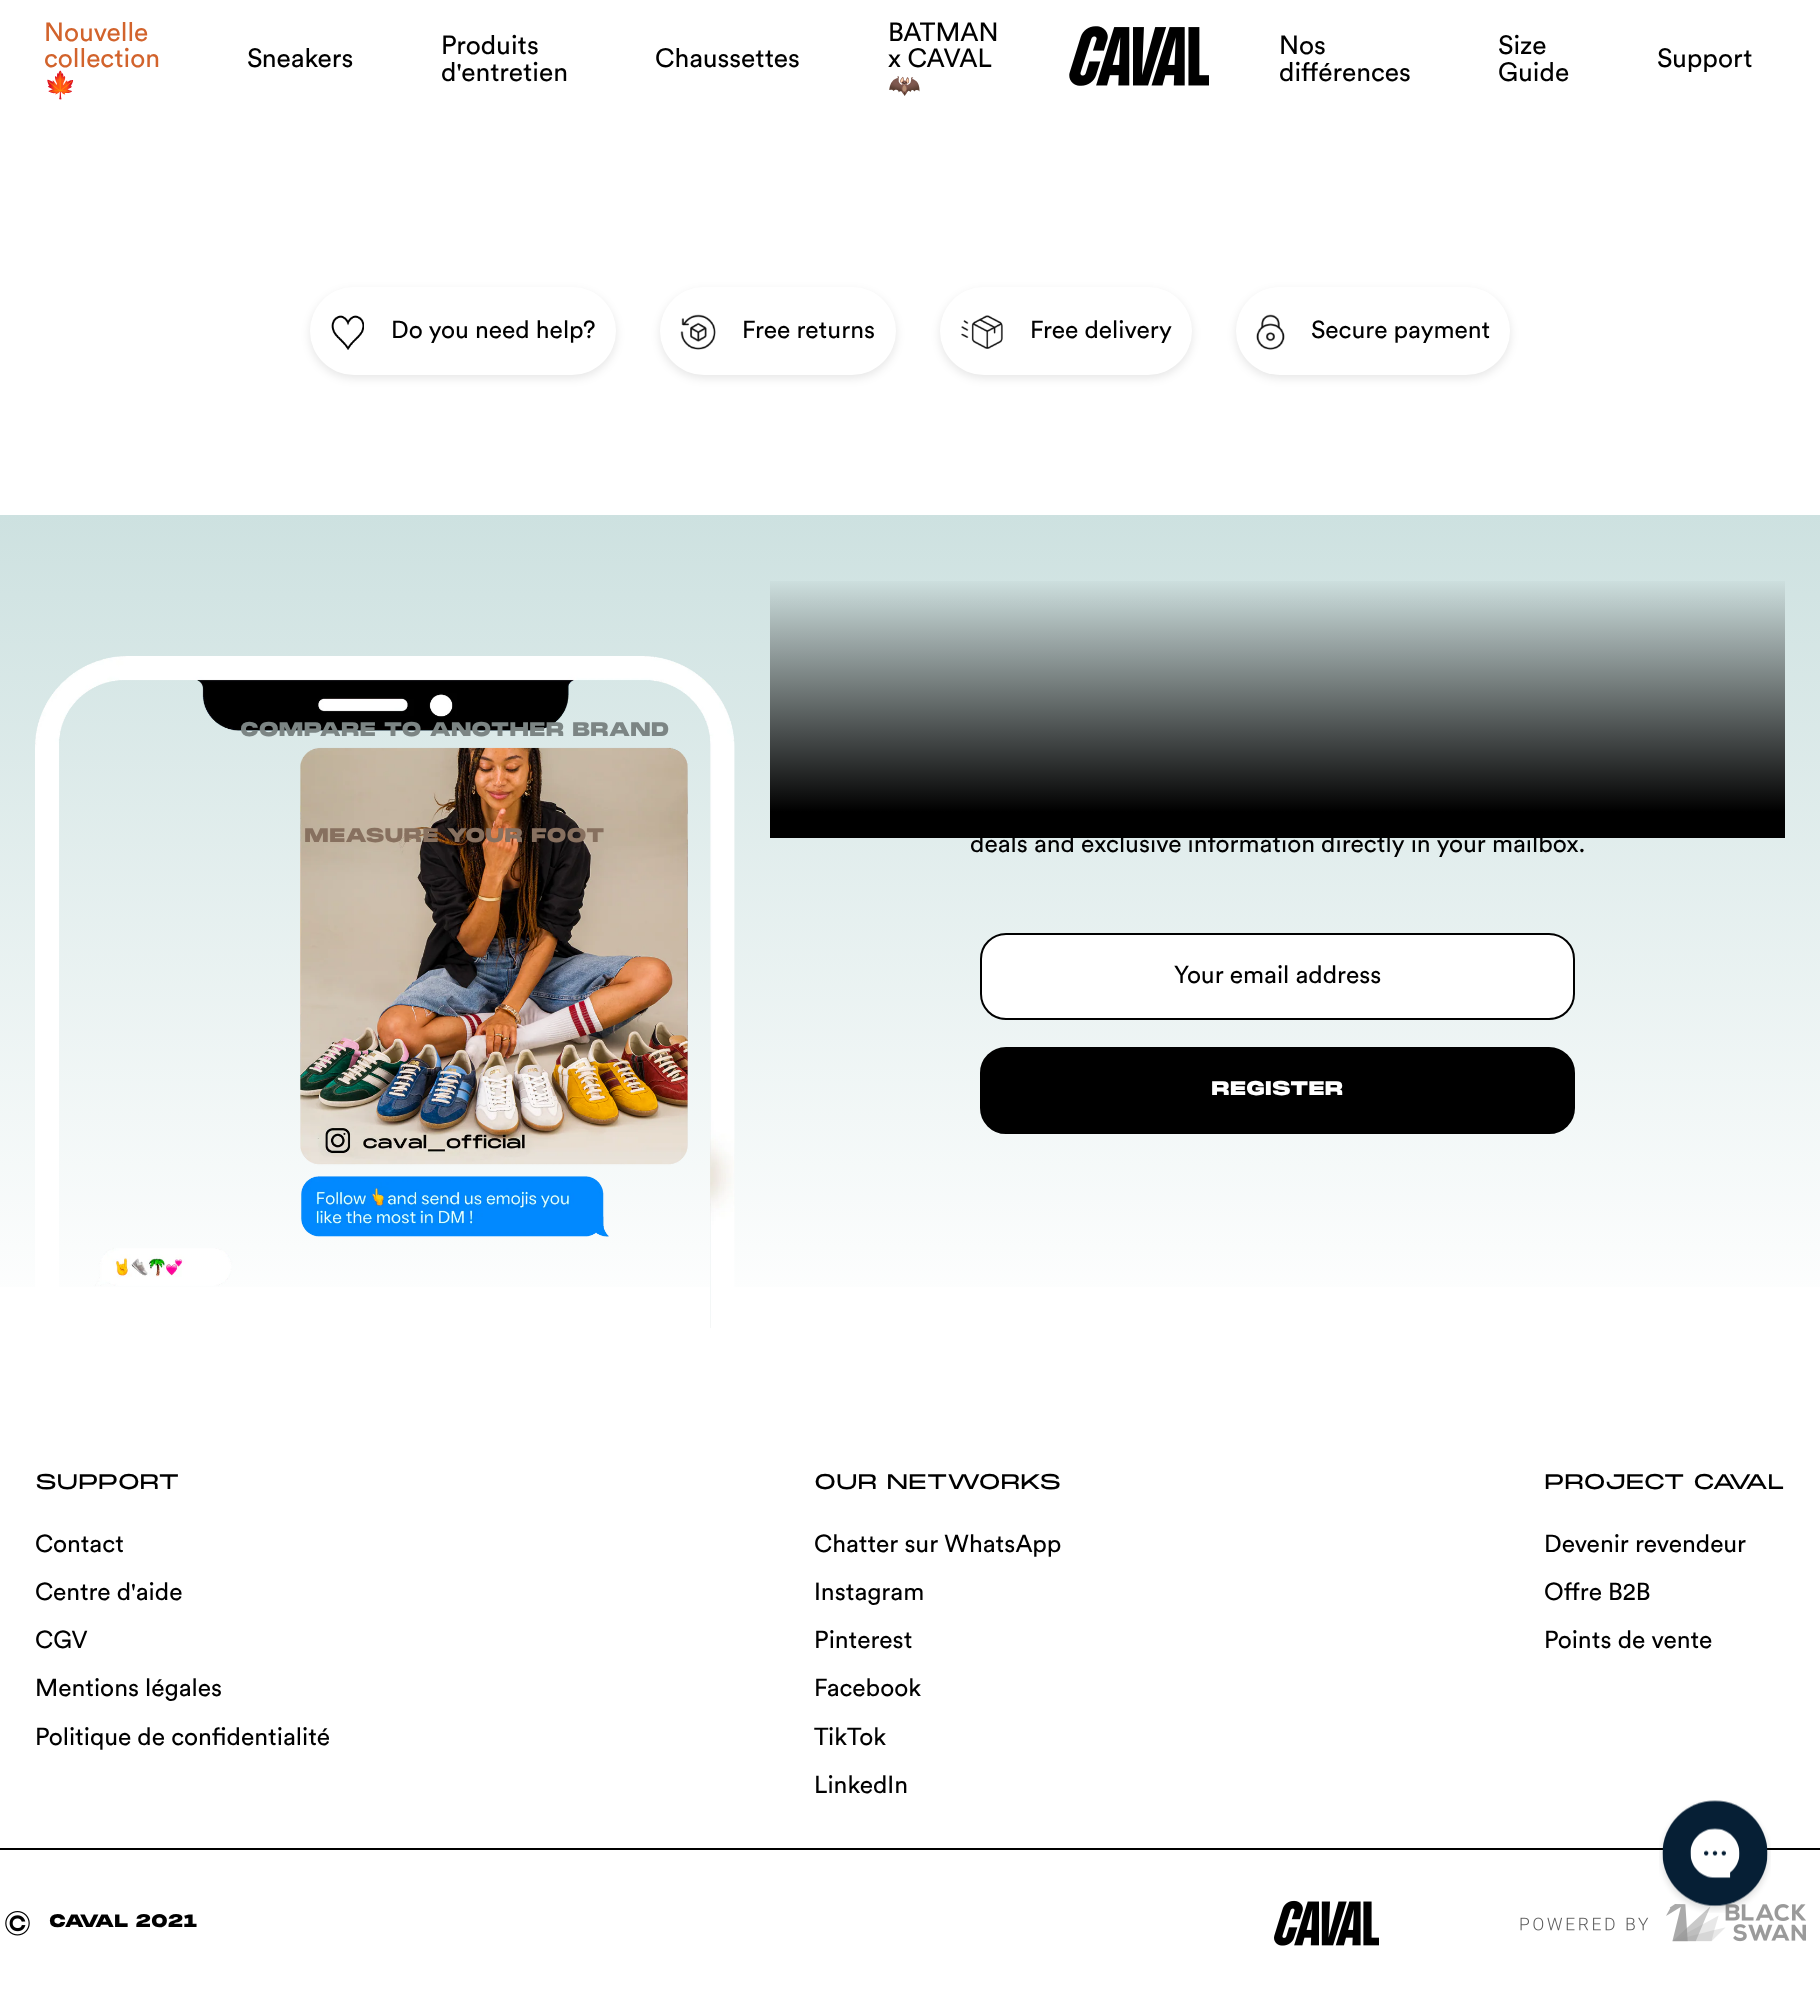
<svg xmlns="http://www.w3.org/2000/svg" width="1820" height="1996" viewBox="0 0 1820 1996">
  <defs>
    <linearGradient id="g1" gradientUnits="userSpaceOnUse" x1="910" y1="514" x2="910" y2="1328"><stop offset="0" stop-color="rgb(205,225,224)"/><stop offset="1" stop-color="rgb(255,255,255)"/></linearGradient>
    <linearGradient id="g2" gradientUnits="userSpaceOnUse" x1="1278" y1="576" x2="1278" y2="838"><stop offset="0" stop-color="rgb(0,0,0)" stop-opacity="0"/><stop offset="0.9" stop-color="rgb(0,0,0)"/></linearGradient>
  </defs>
  <rect width="100%" height="100%" fill="rgb(255,255,255)"/>
  <g font-family="Circular" font-size="26.25" fill="rgb(210,99,44)">
    <text>
      <tspan x="44" y="41">Nouvelle</tspan>
      <tspan x="44" y="67">collection</tspan>
    </text>
  </g>
  <text x="44" y="94" font-family="Noto Color Emoji" font-size="26.25" fill="rgb(210,99,44)">🍁</text>
  <g font-family="Circular" font-size="26.25" fill="rgb(0,0,0)">
    <text x="247" y="67">Sneakers</text>
    <text>
      <tspan x="441" y="54">Produits</tspan>
      <tspan x="441" y="81">d'entretien</tspan>
    </text>
    <text x="655" y="67">Chaussettes</text>
    <text>
      <tspan x="888" y="41">BATMAN</tspan>
      <tspan x="888" y="67">x CAVAL</tspan>
    </text>
  </g>
  <text x="888" y="94" font-family="Noto Color Emoji" font-size="26.25" fill="rgb(0,0,0)">🦇</text>
  <image x="1069" y="26" width="140" height="60" href="pic1.png"/>
  <g font-family="Circular" font-size="26.25" fill="rgb(0,0,0)">
    <text>
      <tspan x="1279" y="54">Nos</tspan>
      <tspan x="1279" y="81">différences</tspan>
    </text>
    <text>
      <tspan x="1498" y="54">Size</tspan>
      <tspan x="1498" y="81">Guide</tspan>
    </text>
    <text x="1657" y="67">Support</text>
  </g>
  <rect x="310" y="291" width="306" height="87" rx="43.5" fill="rgba(0,0,0,0.1)" filter="blur(5px)"/>
  <rect x="310" y="287" width="306" height="88" rx="44" fill="rgb(255,255,255)"/>
  <image x="331" y="315" width="33" height="35" href="pic2.png"/>
  <text x="391" y="338" font-family="Circular" font-size="24.5" fill="rgb(0,0,0)">Do you need help?</text>
  <rect x="660" y="291" width="236" height="87" rx="43.5" fill="rgba(0,0,0,0.1)" filter="blur(5px)"/>
  <rect x="660" y="287" width="236" height="88" rx="44" fill="rgb(255,255,255)"/>
  <image x="680" y="314" width="36" height="36" href="pic3.png"/>
  <text x="742" y="338" font-family="Circular" font-size="24.5" fill="rgb(0,0,0)">Free returns</text>
  <rect x="940" y="291" width="252" height="87" rx="43.5" fill="rgba(0,0,0,0.1)" filter="blur(5px)"/>
  <rect x="940" y="287" width="252" height="88" rx="44" fill="rgb(255,255,255)"/>
  <image x="961" y="315" width="42" height="34" href="pic4.png"/>
  <text x="1030" y="338" font-family="Circular" font-size="24.5" fill="rgb(0,0,0)">Free delivery</text>
  <rect x="1236" y="291" width="274" height="87" rx="43.5" fill="rgba(0,0,0,0.1)" filter="blur(5px)"/>
  <rect x="1236" y="287" width="274" height="88" rx="44" fill="rgb(255,255,255)"/>
  <image x="1256" y="314" width="29" height="36" href="pic5.png"/>
  <text x="1311" y="338" font-family="Circular" font-size="24.5" fill="rgb(0,0,0)">Secure payment</text>
  <rect x="0" y="515" width="1820" height="772" fill="url(#g1)"/>
  <image x="35" y="656" width="700" height="672" href="pic6.png"/>
  <text x="240" y="736" font-family="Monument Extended" font-size="19.3" font-weight="900" fill="rgb(124,133,132)">COMPARE TO ANOTHER BRAND</text>
  <text x="304" y="842" font-family="Monument Extended" font-size="19.3" font-weight="900" fill="rgb(135,112,95)">MEASURE YOUR FOOT</text>
  <text x="970" y="852" font-family="Circular" font-size="24.5" fill="rgb(0,0,0)">deals and exclusive information directly in your mailbox.</text>
  <rect x="770" y="581" width="1015" height="257" fill="url(#g2)"/>
  <rect x="981" y="934" width="593" height="85" rx="25" fill="rgb(255,255,255)" stroke="rgb(0,0,0)" stroke-width="2"/>
  <text x="1174" y="983" font-family="Circular" font-size="24.5" fill="rgb(0,0,0)">Your email address</text>
  <rect x="981" y="1048" width="593" height="85" rx="25" fill="rgb(0,0,0)" stroke="rgb(0,0,0)" stroke-width="2"/>
  <text x="1211" y="1095" font-family="Monument Extended" font-size="19.25" font-weight="900" fill="rgb(255,255,255)">REGISTER</text>
  <text x="35" y="1489" font-family="Monument Extended" font-size="21" fill="rgb(0,0,0)">SUPPORT</text>
  <g font-family="Circular" font-size="24.5" fill="rgb(0,0,0)">
    <text>
      <tspan x="35" y="1552">Contact</tspan>
      <tspan x="35" y="1600">Centre d'aide</tspan>
      <tspan x="35" y="1648">CGV</tspan>
      <tspan x="35" y="1696">Mentions légales</tspan>
    </text>
    <text x="35" y="1745">Politique de confidentialité</text>
  </g>
  <text x="814" y="1489" font-family="Monument Extended" font-size="21" fill="rgb(0,0,0)">OUR NETWORKS</text>
  <g font-family="Circular" font-size="24.5" fill="rgb(0,0,0)">
    <text>
      <tspan x="814" y="1552">Chatter sur WhatsApp</tspan>
      <tspan x="814" y="1600">Instagram</tspan>
      <tspan x="814" y="1648">Pinterest</tspan>
      <tspan x="814" y="1696">Facebook</tspan>
    </text>
    <text>
      <tspan x="814" y="1745">TikTok</tspan>
      <tspan x="814" y="1793">LinkedIn</tspan>
    </text>
  </g>
  <text x="1544" y="1489" font-family="Monument Extended" font-size="21" fill="rgb(0,0,0)">PROJECT CAVAL</text>
  <g font-family="Circular" font-size="24.5" fill="rgb(0,0,0)">
    <text>
      <tspan x="1544" y="1552">Devenir revendeur</tspan>
      <tspan x="1544" y="1600">Offre B2B</tspan>
      <tspan x="1544" y="1648">Points de vente</tspan>
    </text>
  </g>
  <rect x="0" y="1848" width="1820" height="2" fill="rgb(0,0,0)"/>
  <image x="5" y="1911" width="25" height="25" href="pic7.png"/>
  <text x="49" y="1927" font-family="Monument Extended" font-size="17.5" font-weight="900" fill="rgb(0,0,0)">CAVAL 2021</text>
  <image x="1274" y="1900" width="105" height="46" href="pic8.png"/>
  <image x="1520" y="1904" width="286" height="38" href="pic9.png"/>
  <image x="1659" y="1800" width="112" height="113" href="pic10.png"/>
</svg>
